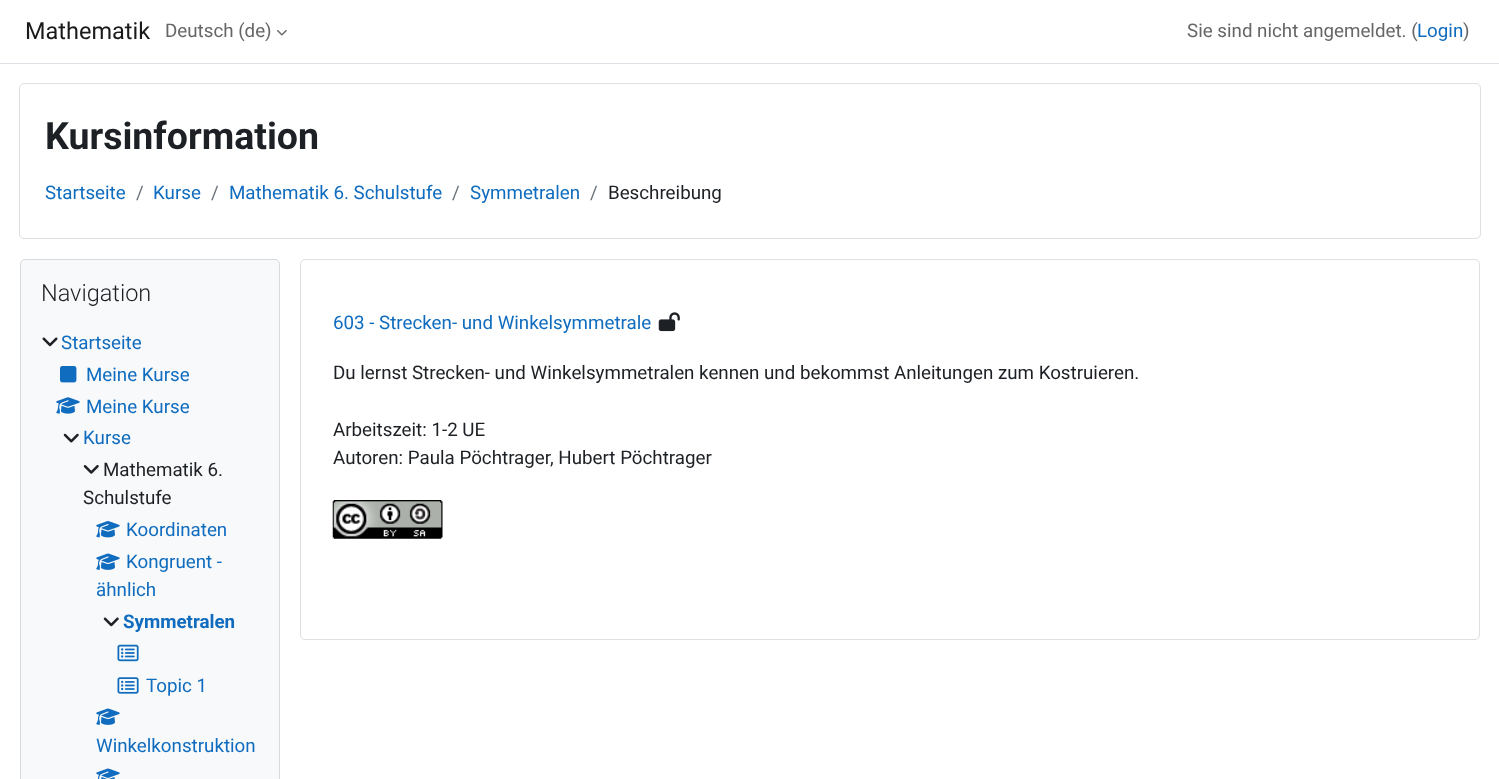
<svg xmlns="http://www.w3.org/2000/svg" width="1499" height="779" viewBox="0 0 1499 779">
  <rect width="100%" height="100%" fill="rgb(255,255,255)"/>
  <rect x="0" y="63" width="1499" height="1" fill="rgb(222,226,230)"/>
  <text x="25" y="39" font-family="Roboto" font-size="23.5" fill="rgb(26,26,26)">Mathematik</text>
  <text x="165" y="37" font-family="Roboto" font-size="18.75" fill="rgb(102,102,102)">Deutsch (de)</text>
  <image x="277" y="30" width="10" height="6" href="pic1.png"/>
  <text x="1187" y="37" font-family="Roboto" font-size="18.75" fill="rgb(102,102,102)">Sie sind nicht angemeldet. (</text>
  <text x="1417" y="37" font-family="Roboto" font-size="18.75" fill="rgb(15,108,191)">Login</text>
  <text x="1463" y="37" font-family="Roboto" font-size="18.75" fill="rgb(102,102,102)">)</text>
  <rect x="19.5" y="83.5" width="1461" height="155" rx="4.5" fill="none" stroke="rgb(223,223,223)"/>
  <text x="45" y="149" font-family="Roboto" font-size="37.5" font-weight="bold" fill="rgb(29,33,37)">Kursinformation</text>
  <text x="45" y="199" font-family="Roboto" font-size="18.75" fill="rgb(15,108,191)">Startseite</text>
  <text x="136" y="199" font-family="Roboto" font-size="18.75" fill="rgb(106,115,123)">/</text>
  <text x="153" y="199" font-family="Roboto" font-size="18.75" fill="rgb(15,108,191)">Kurse</text>
  <text x="211" y="199" font-family="Roboto" font-size="18.75" fill="rgb(106,115,123)">/</text>
  <text x="229" y="199" font-family="Roboto" font-size="18.75" fill="rgb(15,108,191)">Mathematik 6. Schulstufe</text>
  <text x="452" y="199" font-family="Roboto" font-size="18.75" fill="rgb(106,115,123)">/</text>
  <text x="470" y="199" font-family="Roboto" font-size="18.75" fill="rgb(15,108,191)">Symmetralen</text>
  <text x="590" y="199" font-family="Roboto" font-size="18.75" fill="rgb(106,115,123)">/</text>
  <text x="608" y="199" font-family="Roboto" font-size="18.75" fill="rgb(29,33,37)">Beschreibung</text>
  <rect x="20" y="259" width="260" height="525" rx="5" fill="rgb(248,249,250)"/>
  <rect x="20.5" y="259.5" width="259" height="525" rx="4.5" fill="none" stroke="rgba(0,0,0,0.12)"/>
  <text x="41" y="301" font-family="Roboto" font-size="23.5" font-weight="300" fill="rgb(29,33,37)">Navigation</text>
  <image x="42" y="337" width="16" height="10" href="pic2.png"/>
  <text x="61" y="349" font-family="Roboto" font-size="18.75" fill="rgb(15,108,191)">Startseite</text>
  <image x="60" y="366" width="17" height="17" href="pic3.png"/>
  <text x="86" y="381" font-family="Roboto" font-size="18.75" fill="rgb(15,108,191)">Meine Kurse</text>
  <image x="56" y="397" width="24" height="17" href="pic4.png"/>
  <text x="86" y="413" font-family="Roboto" font-size="18.75" fill="rgb(15,108,191)">Meine Kurse</text>
  <image x="63" y="433" width="16" height="10" href="pic5.png"/>
  <text x="83" y="444" font-family="Roboto" font-size="18.75" fill="rgb(15,108,191)">Kurse</text>
  <image x="83" y="465" width="16" height="9" href="pic6.png"/>
  <g font-family="Roboto" font-size="18.75" fill="rgb(29,33,37)">
    <text x="103" y="476">Mathematik 6.</text>
    <text x="83" y="504">Schulstufe</text>
  </g>
  <image x="96" y="521" width="24" height="17" href="pic7.png"/>
  <text x="126" y="536" font-family="Roboto" font-size="18.75" fill="rgb(15,108,191)">Koordinaten</text>
  <image x="96" y="553" width="24" height="17" href="pic8.png"/>
  <g font-family="Roboto" font-size="18.75" fill="rgb(15,108,191)">
    <text x="126" y="568">Kongruent -</text>
    <text x="96" y="596">ähnlich</text>
  </g>
  <image x="103" y="617" width="16" height="10" href="pic9.png"/>
  <text x="123" y="628" font-family="Roboto" font-size="18.75" font-weight="bold" fill="rgb(15,108,191)">Symmetralen</text>
  <image x="117" y="644" width="22" height="18" href="pic10.png"/>
  <image x="117" y="677" width="22" height="17" href="pic11.png"/>
  <text x="146" y="692" font-family="Roboto" font-size="18.75" fill="rgb(15,108,191)">Topic 1</text>
  <image x="96" y="708" width="24" height="17" href="pic8.png"/>
  <text x="96" y="752" font-family="Roboto" font-size="18.75" fill="rgb(15,108,191)">Winkelkonstruktion</text>
  <image x="96" y="768" width="24" height="11" href="pic12.png"/>
  <rect x="300.5" y="259.5" width="1179" height="380" rx="4.5" fill="none" stroke="rgb(223,223,223)"/>
  <text x="333" y="329" font-family="Roboto" font-size="18.75" fill="rgb(15,108,191)">603 - Strecken- und Winkelsymmetrale</text>
  <image x="658" y="312" width="22" height="20" href="pic13.png"/>
  <g font-family="Roboto" font-size="18.75" fill="rgb(29,33,37)">
    <text x="333" y="379">Du lernst Strecken- und Winkelsymmetralen kennen und bekommst Anleitungen zum Kostruieren.</text>
    <text>
      <tspan x="333" y="436">Arbeitszeit: 1-2 UE</tspan>
      <tspan x="333" y="464">Autoren: Paula Pöchtrager, Hubert Pöchtrager</tspan>
    </text>
  </g>
  <image x="332" y="500" width="111" height="39" href="pic14.png"/>
</svg>
